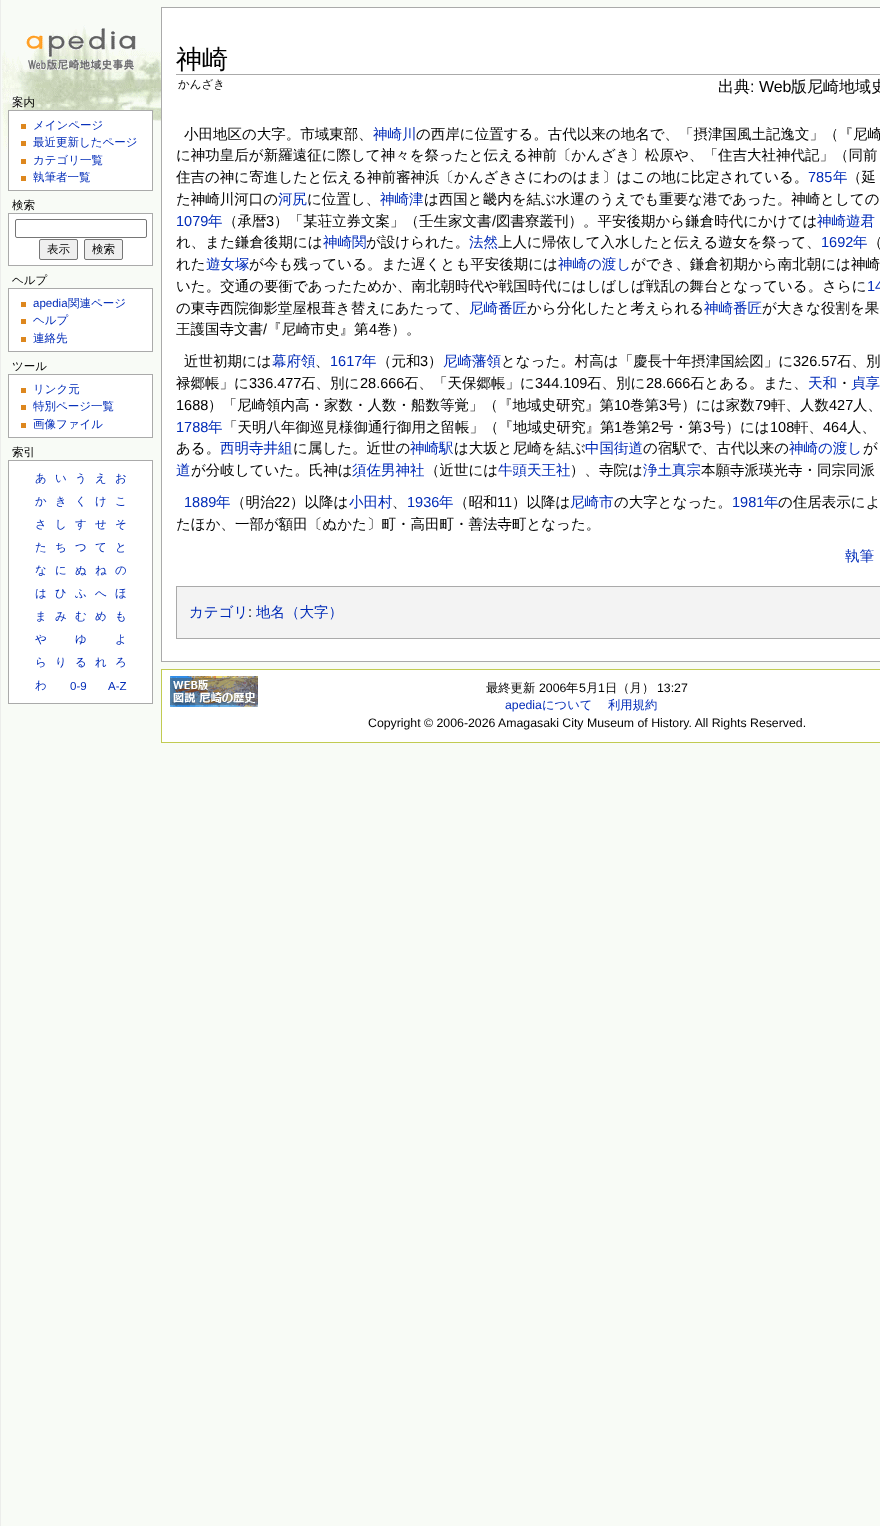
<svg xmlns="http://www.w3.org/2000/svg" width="880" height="1526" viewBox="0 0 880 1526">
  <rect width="100%" height="100%" fill="rgb(248,251,246)"/>
  <image x="2" y="25" width="159" height="127" href="pic1.png"/>
  <rect x="0" y="0" width="1" height="1526" fill="rgb(236,237,235)"/>
  <image x="26" y="28" width="110" height="42" href="pic2.png"/>
  <text x="12" y="106" font-family="WenQuanYi Zen Hei" font-size="11.5" font-weight="500" fill="rgb(0,0,0)">案内</text>
  <rect x="8.5" y="110.5" width="144" height="80" fill="rgb(255,255,255)" stroke="rgb(170,170,170)"/>
  <rect x="21" y="124" width="5" height="5" fill="rgb(221,135,30)"/>
  <text x="33" y="129" font-family="WenQuanYi Zen Hei" font-size="11.5" font-weight="500" fill="rgb(0,43,184)">メインページ</text>
  <rect x="21" y="141" width="5" height="5" fill="rgb(221,135,30)"/>
  <text x="33" y="146" font-family="WenQuanYi Zen Hei" font-size="11.5" font-weight="500" fill="rgb(0,43,184)">最近更新したページ</text>
  <rect x="21" y="159" width="5" height="5" fill="rgb(221,135,30)"/>
  <text x="33" y="164" font-family="WenQuanYi Zen Hei" font-size="11.5" font-weight="500" fill="rgb(0,43,184)">カテゴリ一覧</text>
  <rect x="21" y="176" width="5" height="5" fill="rgb(221,135,30)"/>
  <text x="33" y="181" font-family="WenQuanYi Zen Hei" font-size="11.5" font-weight="500" fill="rgb(0,43,184)">執筆者一覧</text>
  <text x="12" y="209" font-family="WenQuanYi Zen Hei" font-size="11.5" font-weight="500" fill="rgb(0,0,0)">検索</text>
  <rect x="8.5" y="213.5" width="144" height="52" fill="rgb(255,255,255)" stroke="rgb(170,170,170)"/>
  <rect x="15.5" y="219.5" width="131" height="18" rx="1.5" fill="none" stroke="rgb(118,118,118)"/>
  <rect x="39.5" y="239.5" width="38" height="20" rx="1.5" fill="rgb(239,239,239)" stroke="rgb(118,118,118)"/>
  <text x="47" y="253" font-family="WenQuanYi Zen Hei" font-size="11.5" font-weight="500" fill="rgb(0,0,0)">表示</text>
  <rect x="84.5" y="239.5" width="38" height="20" rx="1.5" fill="rgb(239,239,239)" stroke="rgb(118,118,118)"/>
  <g font-family="WenQuanYi Zen Hei" font-size="11.5" font-weight="500" fill="rgb(0,0,0)">
    <text x="92" y="253">検索</text>
    <text x="12" y="284">ヘルプ</text>
  </g>
  <rect x="8.5" y="288.5" width="144" height="63" fill="rgb(255,255,255)" stroke="rgb(170,170,170)"/>
  <rect x="21" y="302" width="5" height="5" fill="rgb(221,135,30)"/>
  <text x="33" y="307" font-family="Liberation Sans" font-size="11.5" fill="rgb(0,43,184)">apedia</text>
  <text x="68" y="307" font-family="WenQuanYi Zen Hei" font-size="11.5" font-weight="500" fill="rgb(0,43,184)">関連ページ</text>
  <rect x="21" y="319" width="5" height="5" fill="rgb(221,135,30)"/>
  <text x="33" y="324" font-family="WenQuanYi Zen Hei" font-size="11.5" font-weight="500" fill="rgb(0,43,184)">ヘルプ</text>
  <rect x="21" y="337" width="5" height="5" fill="rgb(221,135,30)"/>
  <text x="33" y="342" font-family="WenQuanYi Zen Hei" font-size="11.5" font-weight="500" fill="rgb(0,43,184)">連絡先</text>
  <text x="12" y="370" font-family="WenQuanYi Zen Hei" font-size="11.5" font-weight="500" fill="rgb(0,0,0)">ツール</text>
  <rect x="8.5" y="374.5" width="144" height="63" fill="rgb(255,255,255)" stroke="rgb(170,170,170)"/>
  <rect x="21" y="388" width="5" height="5" fill="rgb(221,135,30)"/>
  <text x="33" y="393" font-family="WenQuanYi Zen Hei" font-size="11.5" font-weight="500" fill="rgb(0,43,184)">リンク元</text>
  <rect x="21" y="405" width="5" height="5" fill="rgb(221,135,30)"/>
  <text x="33" y="410" font-family="WenQuanYi Zen Hei" font-size="11.5" font-weight="500" fill="rgb(0,43,184)">特別ページ一覧</text>
  <rect x="21" y="423" width="5" height="5" fill="rgb(221,135,30)"/>
  <text x="33" y="428" font-family="WenQuanYi Zen Hei" font-size="11.5" font-weight="500" fill="rgb(0,43,184)">画像ファイル</text>
  <text x="12" y="456" font-family="WenQuanYi Zen Hei" font-size="11.5" font-weight="500" fill="rgb(0,0,0)">索引</text>
  <rect x="8.5" y="460.5" width="144" height="243" fill="rgb(255,255,255)" stroke="rgb(170,170,170)"/>
  <g font-family="WenQuanYi Zen Hei" font-size="11.5" font-weight="500" fill="rgb(0,43,184)">
    <text x="35" y="482">あ</text>
    <text x="55" y="482">い</text>
    <text x="75" y="482">う</text>
    <text x="95" y="482">え</text>
    <text x="115" y="482">お</text>
    <text x="35" y="505">か</text>
    <text x="55" y="505">き</text>
    <text x="75" y="505">く</text>
    <text x="95" y="505">け</text>
    <text x="115" y="505">こ</text>
    <text x="35" y="528">さ</text>
    <text x="55" y="528">し</text>
    <text x="75" y="528">す</text>
    <text x="95" y="528">せ</text>
    <text x="115" y="528">そ</text>
    <text x="35" y="551">た</text>
    <text x="55" y="551">ち</text>
    <text x="75" y="551">つ</text>
    <text x="95" y="551">て</text>
    <text x="115" y="551">と</text>
    <text x="35" y="574">な</text>
    <text x="55" y="574">に</text>
    <text x="75" y="574">ぬ</text>
    <text x="95" y="574">ね</text>
    <text x="115" y="574">の</text>
    <text x="35" y="597">は</text>
    <text x="55" y="597">ひ</text>
    <text x="75" y="597">ふ</text>
    <text x="95" y="597">へ</text>
    <text x="115" y="597">ほ</text>
    <text x="35" y="620">ま</text>
    <text x="55" y="620">み</text>
    <text x="75" y="620">む</text>
    <text x="95" y="620">め</text>
    <text x="115" y="620">も</text>
    <text x="35" y="643">や</text>
    <text x="75" y="643">ゆ</text>
    <text x="115" y="643">よ</text>
    <text x="35" y="666">ら</text>
    <text x="55" y="666">り</text>
    <text x="75" y="666">る</text>
    <text x="95" y="666">れ</text>
    <text x="115" y="666">ろ</text>
    <text x="35" y="689">わ</text>
  </g>
  <g font-family="Liberation Sans" font-size="11.5" fill="rgb(0,43,184)">
    <text x="70" y="690">0-9</text>
    <text x="108" y="690">A-Z</text>
  </g>
  <rect x="161.5" y="7.5" width="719" height="654" fill="rgb(255,255,255)" stroke="rgb(170,170,170)"/>
  <rect x="176" y="74" width="704" height="1" fill="rgb(170,170,170)"/>
  <text x="176" y="68" font-family="WenQuanYi Zen Hei" font-size="26" font-weight="500" fill="rgb(0,0,0)">神崎</text>
  <text x="178" y="88" font-family="WenQuanYi Zen Hei" font-size="11.5" font-weight="500" fill="rgb(0,0,0)">かんざき</text>
  <text x="718" y="92" font-family="WenQuanYi Zen Hei" font-size="16" font-weight="500" fill="rgb(0,0,0)">出典</text>
  <text x="750" y="92" font-family="Liberation Sans" font-size="16" fill="rgb(0,0,0)">: Web</text>
  <text x="791" y="92" font-family="WenQuanYi Zen Hei" font-size="16" font-weight="500" fill="rgb(0,0,0)">版尼崎地域史</text>
  <text x="184" y="139" font-family="WenQuanYi Zen Hei" font-size="14.5" font-weight="500" fill="rgb(0,0,0)">小田地区の大字。市域東部、</text>
  <text x="373" y="139" font-family="WenQuanYi Zen Hei" font-size="14.5" font-weight="500" fill="rgb(0,43,184)">神崎川</text>
  <g font-family="WenQuanYi Zen Hei" font-size="14.5" font-weight="500" fill="rgb(0,0,0)">
    <text x="416" y="139">の西岸に位置する。古代以来の地名で、「摂津国風土記逸文」（『尼崎</text>
    <text>
      <tspan x="176" y="160">に神功皇后が新羅遠征に際して神々を祭ったと伝える神前〔かんざき〕松原や、「住吉大社神代記」（同前</tspan>
      <tspan x="176" y="182">住吉の神に寄進したと伝える神前審神浜〔かんざきさにわのはま〕はこの地に比定されている。</tspan>
    </text>
  </g>
  <text x="808" y="182" font-family="Liberation Sans" font-size="14.5" fill="rgb(0,43,184)">785</text>
  <text x="833" y="182" font-family="WenQuanYi Zen Hei" font-size="14.5" font-weight="500" fill="rgb(0,43,184)">年</text>
  <g font-family="WenQuanYi Zen Hei" font-size="14.5" font-weight="500" fill="rgb(0,0,0)">
    <text x="847" y="182">（延</text>
    <text x="176" y="204">た神崎川河口の</text>
  </g>
  <text x="278" y="204" font-family="WenQuanYi Zen Hei" font-size="14.5" font-weight="500" fill="rgb(0,43,184)">河尻</text>
  <text x="307" y="204" font-family="WenQuanYi Zen Hei" font-size="14.5" font-weight="500" fill="rgb(0,0,0)">に位置し、</text>
  <text x="380" y="204" font-family="WenQuanYi Zen Hei" font-size="14.5" font-weight="500" fill="rgb(0,43,184)">神崎津</text>
  <text x="424" y="204" font-family="WenQuanYi Zen Hei" font-size="14.5" font-weight="500" fill="rgb(0,0,0)">は西国と畿内を結ぶ水運のうえでも重要な港であった。神崎としての</text>
  <text x="176" y="226" font-family="Liberation Sans" font-size="14.5" fill="rgb(0,43,184)">1079</text>
  <text x="208" y="226" font-family="WenQuanYi Zen Hei" font-size="14.5" font-weight="500" fill="rgb(0,43,184)">年</text>
  <text x="223" y="226" font-family="WenQuanYi Zen Hei" font-size="14.5" font-weight="500" fill="rgb(0,0,0)">（承暦</text>
  <text x="266" y="226" font-family="Liberation Sans" font-size="14.5" fill="rgb(0,0,0)">3</text>
  <text x="274" y="226" font-family="WenQuanYi Zen Hei" font-size="14.5" font-weight="500" fill="rgb(0,0,0)">）「某荘立券文案」（壬生家文書</text>
  <text x="492" y="226" font-family="Liberation Sans" font-size="14.5" fill="rgb(0,0,0)">/</text>
  <text x="496" y="226" font-family="WenQuanYi Zen Hei" font-size="14.5" font-weight="500" fill="rgb(0,0,0)">図書寮叢刊）。平安後期から鎌倉時代にかけては</text>
  <text x="817" y="226" font-family="WenQuanYi Zen Hei" font-size="14.5" font-weight="500" fill="rgb(0,43,184)">神崎遊君</text>
  <text x="176" y="247" font-family="WenQuanYi Zen Hei" font-size="14.5" font-weight="500" fill="rgb(0,0,0)">れ、また鎌倉後期には</text>
  <text x="323" y="247" font-family="WenQuanYi Zen Hei" font-size="14.5" font-weight="500" fill="rgb(0,43,184)">神崎関</text>
  <text x="366" y="247" font-family="WenQuanYi Zen Hei" font-size="14.5" font-weight="500" fill="rgb(0,0,0)">が設けられた。</text>
  <text x="469" y="247" font-family="WenQuanYi Zen Hei" font-size="14.5" font-weight="500" fill="rgb(0,43,184)">法然</text>
  <text x="498" y="247" font-family="WenQuanYi Zen Hei" font-size="14.5" font-weight="500" fill="rgb(0,0,0)">上人に帰依して入水したと伝える遊女を祭って、</text>
  <text x="821" y="247" font-family="Liberation Sans" font-size="14.5" fill="rgb(0,43,184)">1692</text>
  <text x="853" y="247" font-family="WenQuanYi Zen Hei" font-size="14.5" font-weight="500" fill="rgb(0,43,184)">年</text>
  <g font-family="WenQuanYi Zen Hei" font-size="14.5" font-weight="500" fill="rgb(0,0,0)">
    <text x="868" y="247">（</text>
    <text x="176" y="269">れた</text>
  </g>
  <text x="206" y="269" font-family="WenQuanYi Zen Hei" font-size="14.5" font-weight="500" fill="rgb(0,43,184)">遊女塚</text>
  <text x="249" y="269" font-family="WenQuanYi Zen Hei" font-size="14.5" font-weight="500" fill="rgb(0,0,0)">が今も残っている。また遅くとも平安後期には</text>
  <text x="558" y="269" font-family="WenQuanYi Zen Hei" font-size="14.5" font-weight="500" fill="rgb(0,43,184)">神崎の渡し</text>
  <g font-family="WenQuanYi Zen Hei" font-size="14.5" font-weight="500" fill="rgb(0,0,0)">
    <text x="631" y="269">ができ、鎌倉初期から南北朝には神崎</text>
    <text x="176" y="291">いた。交通の要衝であったためか、南北朝時代や戦国時代にはしばしば戦乱の舞台となっている。さらに</text>
  </g>
  <text x="867" y="291" font-family="Liberation Sans" font-size="14.5" fill="rgb(0,43,184)">14</text>
  <text x="176" y="313" font-family="WenQuanYi Zen Hei" font-size="14.5" font-weight="500" fill="rgb(0,0,0)">の東寺西院御影堂屋根葺き替えにあたって、</text>
  <text x="469" y="313" font-family="WenQuanYi Zen Hei" font-size="14.5" font-weight="500" fill="rgb(0,43,184)">尼崎番匠</text>
  <text x="527" y="313" font-family="WenQuanYi Zen Hei" font-size="14.5" font-weight="500" fill="rgb(0,0,0)">から分化したと考えられる</text>
  <text x="704" y="313" font-family="WenQuanYi Zen Hei" font-size="14.5" font-weight="500" fill="rgb(0,43,184)">神崎番匠</text>
  <g font-family="WenQuanYi Zen Hei" font-size="14.5" font-weight="500" fill="rgb(0,0,0)">
    <text x="762" y="313">が大きな役割を果</text>
    <text x="176" y="334">王護国寺文書</text>
  </g>
  <text x="263" y="334" font-family="Liberation Sans" font-size="14.5" fill="rgb(0,0,0)">/</text>
  <text x="267" y="334" font-family="WenQuanYi Zen Hei" font-size="14.5" font-weight="500" fill="rgb(0,0,0)">『尼崎市史』第</text>
  <text x="369" y="334" font-family="Liberation Sans" font-size="14.5" fill="rgb(0,0,0)">4</text>
  <g font-family="WenQuanYi Zen Hei" font-size="14.5" font-weight="500" fill="rgb(0,0,0)">
    <text x="377" y="334">巻）。</text>
    <text x="184" y="366">近世初期には</text>
  </g>
  <text x="272" y="366" font-family="WenQuanYi Zen Hei" font-size="14.5" font-weight="500" fill="rgb(0,43,184)">幕府領</text>
  <text x="315" y="366" font-family="WenQuanYi Zen Hei" font-size="14.5" font-weight="500" fill="rgb(0,0,0)">、</text>
  <text x="330" y="366" font-family="Liberation Sans" font-size="14.5" fill="rgb(0,43,184)">1617</text>
  <text x="362" y="366" font-family="WenQuanYi Zen Hei" font-size="14.5" font-weight="500" fill="rgb(0,43,184)">年</text>
  <text x="377" y="366" font-family="WenQuanYi Zen Hei" font-size="14.5" font-weight="500" fill="rgb(0,0,0)">（元和</text>
  <text x="420" y="366" font-family="Liberation Sans" font-size="14.5" fill="rgb(0,0,0)">3</text>
  <text x="428" y="366" font-family="WenQuanYi Zen Hei" font-size="14.5" font-weight="500" fill="rgb(0,0,0)">）</text>
  <text x="443" y="366" font-family="WenQuanYi Zen Hei" font-size="14.5" font-weight="500" fill="rgb(0,43,184)">尼崎藩領</text>
  <text x="501" y="366" font-family="WenQuanYi Zen Hei" font-size="14.5" font-weight="500" fill="rgb(0,0,0)">となった。村高は「慶長十年摂津国絵図」に</text>
  <text x="793" y="366" font-family="Liberation Sans" font-size="14.5" fill="rgb(0,0,0)">326.57</text>
  <g font-family="WenQuanYi Zen Hei" font-size="14.5" font-weight="500" fill="rgb(0,0,0)">
    <text x="837" y="366">石、別</text>
    <text x="176" y="388">禄郷帳」に</text>
  </g>
  <text x="249" y="388" font-family="Liberation Sans" font-size="14.5" fill="rgb(0,0,0)">336.477</text>
  <text x="301" y="388" font-family="WenQuanYi Zen Hei" font-size="14.5" font-weight="500" fill="rgb(0,0,0)">石、別に</text>
  <text x="360" y="388" font-family="Liberation Sans" font-size="14.5" fill="rgb(0,0,0)">28.666</text>
  <text x="404" y="388" font-family="WenQuanYi Zen Hei" font-size="14.5" font-weight="500" fill="rgb(0,0,0)">石、「天保郷帳」に</text>
  <text x="535" y="388" font-family="Liberation Sans" font-size="14.5" fill="rgb(0,0,0)">344.109</text>
  <text x="587" y="388" font-family="WenQuanYi Zen Hei" font-size="14.5" font-weight="500" fill="rgb(0,0,0)">石、別に</text>
  <text x="646" y="388" font-family="Liberation Sans" font-size="14.5" fill="rgb(0,0,0)">28.666</text>
  <text x="690" y="388" font-family="WenQuanYi Zen Hei" font-size="14.5" font-weight="500" fill="rgb(0,0,0)">石とある。また、</text>
  <text x="808" y="388" font-family="WenQuanYi Zen Hei" font-size="14.5" font-weight="500" fill="rgb(0,43,184)">天和</text>
  <text x="837" y="388" font-family="WenQuanYi Zen Hei" font-size="14.5" font-weight="500" fill="rgb(0,0,0)">・</text>
  <text x="851" y="388" font-family="WenQuanYi Zen Hei" font-size="14.5" font-weight="500" fill="rgb(0,43,184)">貞享</text>
  <text x="176" y="410" font-family="Liberation Sans" font-size="14.5" fill="rgb(0,0,0)">1688</text>
  <text x="208" y="410" font-family="WenQuanYi Zen Hei" font-size="14.5" font-weight="500" fill="rgb(0,0,0)">）「尼崎領内高・家数・人数・船数等覚」（『地域史研究』第</text>
  <text x="614" y="410" font-family="Liberation Sans" font-size="14.5" fill="rgb(0,0,0)">10</text>
  <text x="630" y="410" font-family="WenQuanYi Zen Hei" font-size="14.5" font-weight="500" fill="rgb(0,0,0)">巻第</text>
  <text x="659" y="410" font-family="Liberation Sans" font-size="14.5" fill="rgb(0,0,0)">3</text>
  <text x="667" y="410" font-family="WenQuanYi Zen Hei" font-size="14.5" font-weight="500" fill="rgb(0,0,0)">号）には家数</text>
  <text x="755" y="410" font-family="Liberation Sans" font-size="14.5" fill="rgb(0,0,0)">79</text>
  <text x="771" y="410" font-family="WenQuanYi Zen Hei" font-size="14.5" font-weight="500" fill="rgb(0,0,0)">軒、人数</text>
  <text x="829" y="410" font-family="Liberation Sans" font-size="14.5" fill="rgb(0,0,0)">427</text>
  <text x="853" y="410" font-family="WenQuanYi Zen Hei" font-size="14.5" font-weight="500" fill="rgb(0,0,0)">人、</text>
  <text x="176" y="432" font-family="Liberation Sans" font-size="14.5" fill="rgb(0,43,184)">1788</text>
  <text x="208" y="432" font-family="WenQuanYi Zen Hei" font-size="14.5" font-weight="500" fill="rgb(0,43,184)">年</text>
  <text x="223" y="432" font-family="WenQuanYi Zen Hei" font-size="14.5" font-weight="500" fill="rgb(0,0,0)">「天明八年御巡見様御通行御用之留帳」（『地域史研究』第</text>
  <text x="614" y="432" font-family="Liberation Sans" font-size="14.5" fill="rgb(0,0,0)">1</text>
  <text x="622" y="432" font-family="WenQuanYi Zen Hei" font-size="14.5" font-weight="500" fill="rgb(0,0,0)">巻第</text>
  <text x="651" y="432" font-family="Liberation Sans" font-size="14.5" fill="rgb(0,0,0)">2</text>
  <text x="659" y="432" font-family="WenQuanYi Zen Hei" font-size="14.5" font-weight="500" fill="rgb(0,0,0)">号・第</text>
  <text x="703" y="432" font-family="Liberation Sans" font-size="14.5" fill="rgb(0,0,0)">3</text>
  <text x="711" y="432" font-family="WenQuanYi Zen Hei" font-size="14.5" font-weight="500" fill="rgb(0,0,0)">号）には</text>
  <text x="770" y="432" font-family="Liberation Sans" font-size="14.5" fill="rgb(0,0,0)">108</text>
  <text x="794" y="432" font-family="WenQuanYi Zen Hei" font-size="14.5" font-weight="500" fill="rgb(0,0,0)">軒、</text>
  <text x="823" y="432" font-family="Liberation Sans" font-size="14.5" fill="rgb(0,0,0)">464</text>
  <g font-family="WenQuanYi Zen Hei" font-size="14.5" font-weight="500" fill="rgb(0,0,0)">
    <text x="847" y="432">人、</text>
    <text x="176" y="453">ある。</text>
  </g>
  <text x="220" y="453" font-family="WenQuanYi Zen Hei" font-size="14.5" font-weight="500" fill="rgb(0,43,184)">西明寺井組</text>
  <text x="293" y="453" font-family="WenQuanYi Zen Hei" font-size="14.5" font-weight="500" fill="rgb(0,0,0)">に属した。近世の</text>
  <text x="410" y="453" font-family="WenQuanYi Zen Hei" font-size="14.5" font-weight="500" fill="rgb(0,43,184)">神崎駅</text>
  <text x="454" y="453" font-family="WenQuanYi Zen Hei" font-size="14.5" font-weight="500" fill="rgb(0,0,0)">は大坂と尼崎を結ぶ</text>
  <text x="585" y="453" font-family="WenQuanYi Zen Hei" font-size="14.5" font-weight="500" fill="rgb(0,43,184)">中国街道</text>
  <text x="643" y="453" font-family="WenQuanYi Zen Hei" font-size="14.5" font-weight="500" fill="rgb(0,0,0)">の宿駅で、古代以来の</text>
  <text x="789" y="453" font-family="WenQuanYi Zen Hei" font-size="14.5" font-weight="500" fill="rgb(0,43,184)">神崎の渡し</text>
  <text x="863" y="453" font-family="WenQuanYi Zen Hei" font-size="14.5" font-weight="500" fill="rgb(0,0,0)">が</text>
  <text x="176" y="475" font-family="WenQuanYi Zen Hei" font-size="14.5" font-weight="500" fill="rgb(0,43,184)">道</text>
  <text x="191" y="475" font-family="WenQuanYi Zen Hei" font-size="14.5" font-weight="500" fill="rgb(0,0,0)">が分岐していた。氏神は</text>
  <text x="352" y="475" font-family="WenQuanYi Zen Hei" font-size="14.5" font-weight="500" fill="rgb(0,43,184)">須佐男神社</text>
  <text x="425" y="475" font-family="WenQuanYi Zen Hei" font-size="14.5" font-weight="500" fill="rgb(0,0,0)">（近世には</text>
  <text x="498" y="475" font-family="WenQuanYi Zen Hei" font-size="14.5" font-weight="500" fill="rgb(0,43,184)">牛頭天王社</text>
  <text x="570" y="475" font-family="WenQuanYi Zen Hei" font-size="14.5" font-weight="500" fill="rgb(0,0,0)">）、寺院は</text>
  <text x="643" y="475" font-family="WenQuanYi Zen Hei" font-size="14.5" font-weight="500" fill="rgb(0,43,184)">浄土真宗</text>
  <text x="701" y="475" font-family="WenQuanYi Zen Hei" font-size="14.5" font-weight="500" fill="rgb(0,0,0)">本願寺派瑛光寺・同宗同派</text>
  <text x="184" y="507" font-family="Liberation Sans" font-size="14.5" fill="rgb(0,43,184)">1889</text>
  <text x="216" y="507" font-family="WenQuanYi Zen Hei" font-size="14.5" font-weight="500" fill="rgb(0,43,184)">年</text>
  <text x="231" y="507" font-family="WenQuanYi Zen Hei" font-size="14.5" font-weight="500" fill="rgb(0,0,0)">（明治</text>
  <text x="274" y="507" font-family="Liberation Sans" font-size="14.5" fill="rgb(0,0,0)">22</text>
  <text x="290" y="507" font-family="WenQuanYi Zen Hei" font-size="14.5" font-weight="500" fill="rgb(0,0,0)">）以降は</text>
  <text x="349" y="507" font-family="WenQuanYi Zen Hei" font-size="14.5" font-weight="500" fill="rgb(0,43,184)">小田村</text>
  <text x="392" y="507" font-family="WenQuanYi Zen Hei" font-size="14.5" font-weight="500" fill="rgb(0,0,0)">、</text>
  <text x="407" y="507" font-family="Liberation Sans" font-size="14.5" fill="rgb(0,43,184)">1936</text>
  <text x="439" y="507" font-family="WenQuanYi Zen Hei" font-size="14.5" font-weight="500" fill="rgb(0,43,184)">年</text>
  <text x="454" y="507" font-family="WenQuanYi Zen Hei" font-size="14.5" font-weight="500" fill="rgb(0,0,0)">（昭和</text>
  <text x="497" y="507" font-family="Liberation Sans" font-size="14.5" fill="rgb(0,0,0)">11</text>
  <text x="512" y="507" font-family="WenQuanYi Zen Hei" font-size="14.5" font-weight="500" fill="rgb(0,0,0)">）以降は</text>
  <text x="570" y="507" font-family="WenQuanYi Zen Hei" font-size="14.5" font-weight="500" fill="rgb(0,43,184)">尼崎市</text>
  <text x="614" y="507" font-family="WenQuanYi Zen Hei" font-size="14.5" font-weight="500" fill="rgb(0,0,0)">の大字となった。</text>
  <text x="732" y="507" font-family="Liberation Sans" font-size="14.5" fill="rgb(0,43,184)">1981</text>
  <text x="764" y="507" font-family="WenQuanYi Zen Hei" font-size="14.5" font-weight="500" fill="rgb(0,43,184)">年</text>
  <g font-family="WenQuanYi Zen Hei" font-size="14.5" font-weight="500" fill="rgb(0,0,0)">
    <text x="778" y="507">の住居表示によ</text>
    <text x="176" y="529">たほか、一部が額田〔ぬかた〕町・高田町・善法寺町となった。</text>
  </g>
  <text x="845" y="561" font-family="WenQuanYi Zen Hei" font-size="14.5" font-weight="500" fill="rgb(0,43,184)">執筆</text>
  <rect x="176.5" y="586.5" width="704" height="52" fill="rgb(243,243,243)" stroke="rgb(170,170,170)"/>
  <text x="189" y="617" font-family="WenQuanYi Zen Hei" font-size="14.5" font-weight="500" fill="rgb(0,43,184)">カテゴリ</text>
  <text x="248" y="617" font-family="Liberation Sans" font-size="14.5" fill="rgb(0,0,0)">:</text>
  <text x="256" y="617" font-family="WenQuanYi Zen Hei" font-size="14.5" font-weight="500" fill="rgb(0,43,184)">地名（大字）</text>
  <rect x="161.5" y="669.5" width="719" height="73" fill="rgb(255,255,255)" stroke="rgb(193,203,82)"/>
  <image x="170" y="676" width="88" height="31" href="pic3.png"/>
  <text x="486" y="692" font-family="WenQuanYi Zen Hei" font-size="12.3" font-weight="500" fill="rgb(0,0,0)">最終更新</text>
  <text x="539" y="692" font-family="Liberation Sans" font-size="12.3" fill="rgb(0,0,0)">2006</text>
  <text x="566" y="692" font-family="WenQuanYi Zen Hei" font-size="12.3" font-weight="500" fill="rgb(0,0,0)">年</text>
  <text x="579" y="692" font-family="Liberation Sans" font-size="12.3" fill="rgb(0,0,0)">5</text>
  <text x="586" y="692" font-family="WenQuanYi Zen Hei" font-size="12.3" font-weight="500" fill="rgb(0,0,0)">月</text>
  <text x="598" y="692" font-family="Liberation Sans" font-size="12.3" fill="rgb(0,0,0)">1</text>
  <text x="605" y="692" font-family="WenQuanYi Zen Hei" font-size="12.3" font-weight="500" fill="rgb(0,0,0)">日（月）</text>
  <text x="657" y="692" font-family="Liberation Sans" font-size="12.3" fill="rgb(0,0,0)">13:27</text>
  <text x="505" y="709" font-family="Liberation Sans" font-size="12.3" fill="rgb(0,43,184)">apedia</text>
  <g font-family="WenQuanYi Zen Hei" font-size="12.3" font-weight="500" fill="rgb(0,43,184)">
    <text x="542" y="709">について</text>
    <text x="608" y="709">利用規約</text>
  </g>
  <text x="368" y="727" font-family="Liberation Sans" font-size="12.3" fill="rgb(0,0,0)">Copyright © 2006-2026 Amagasaki City Museum of History. All Rights Reserved.</text>
</svg>
